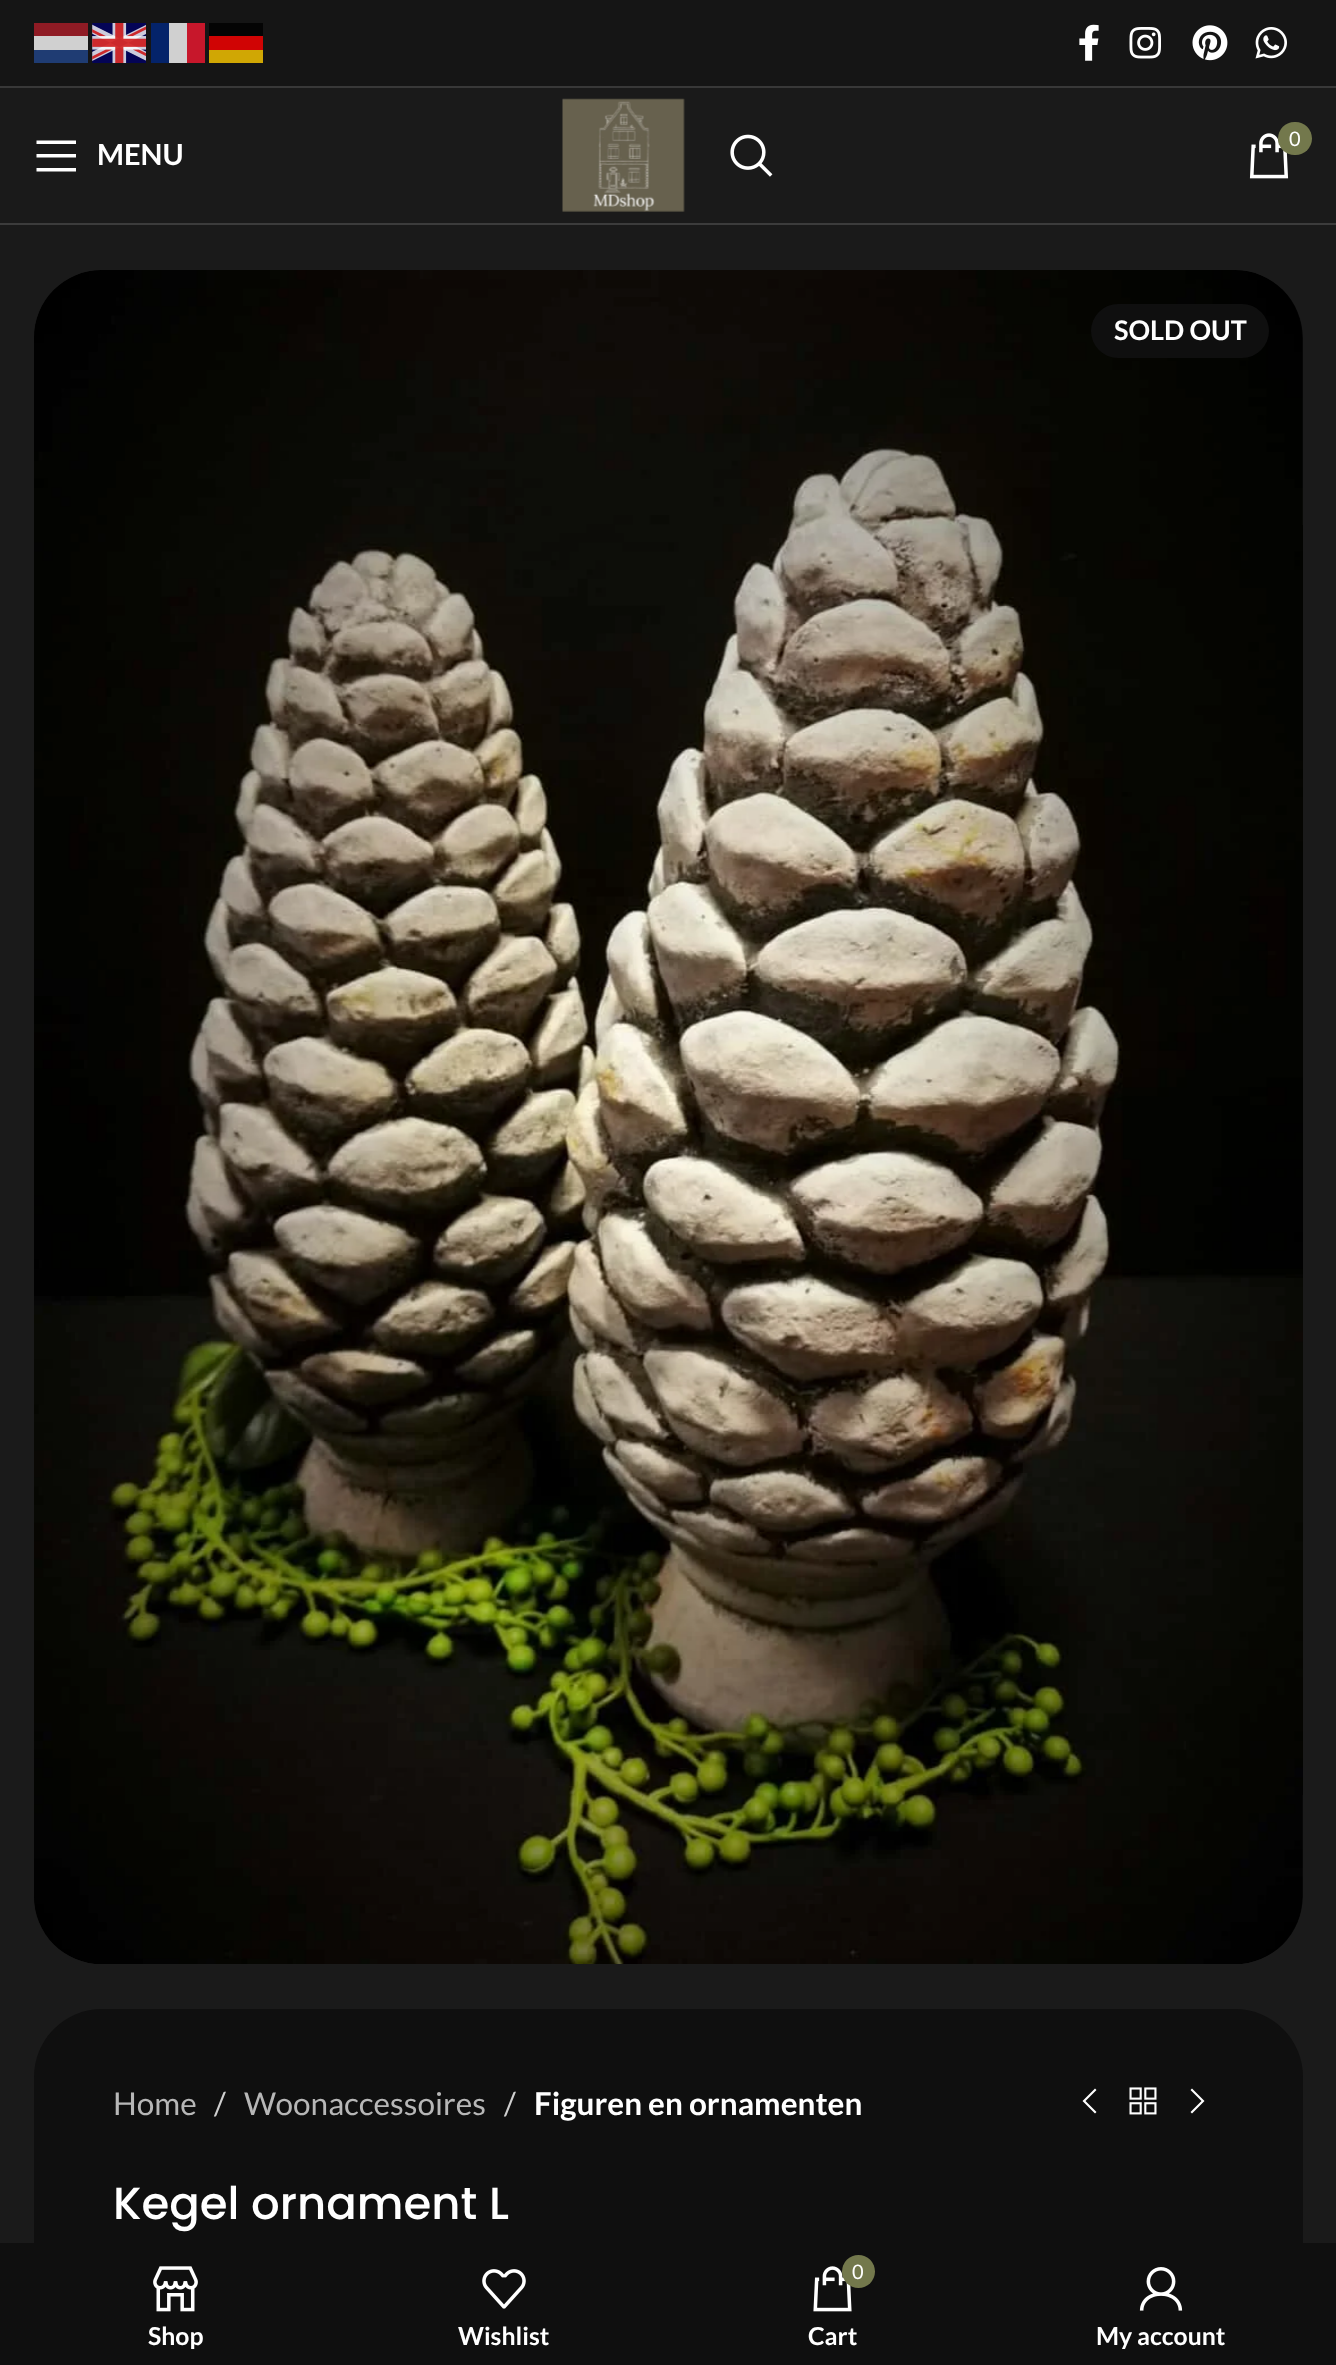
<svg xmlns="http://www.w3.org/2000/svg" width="1336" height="2365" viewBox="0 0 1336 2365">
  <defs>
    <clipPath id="clip1"><rect x="34" y="2320" width="283" height="29"/></clipPath>
    <clipPath id="clip2"><rect x="1019" y="2320" width="284" height="29"/></clipPath>
  </defs>
  <rect width="100%" height="100%" fill="rgb(26,26,26)"/>
  <rect x="0" y="0" width="1336" height="86" fill="rgb(21,21,21)"/>
  <rect x="0" y="86" width="1336" height="2" fill="rgb(56,56,56)"/>
  <rect x="34" y="23" width="54" height="13" fill="rgb(143,27,36)"/>
  <image x="92" y="23" width="54" height="40" href="pic1.png"/>
  <rect x="151" y="23" width="18" height="40" fill="rgb(4,35,106)"/>
  <rect x="169" y="23" width="18" height="40" fill="rgb(208,208,208)"/>
  <rect x="187" y="23" width="18" height="40" fill="rgb(199,23,43)"/>
  <rect x="209" y="23" width="54" height="13" fill="rgb(4,4,4)"/>
  <rect x="34" y="36" width="54" height="14" fill="rgb(208,208,208)"/>
  <rect x="209" y="36" width="54" height="14" fill="rgb(208,4,4)"/>
  <rect x="34" y="50" width="54" height="13" fill="rgb(31,60,115)"/>
  <rect x="209" y="50" width="54" height="13" fill="rgb(208,167,4)"/>
  <image x="1079" y="24" width="20" height="37" href="pic2.png"/>
  <image x="1129" y="27" width="32" height="32" href="pic3.png"/>
  <image x="1192" y="25" width="36" height="36" href="pic4.png"/>
  <image x="1255" y="27" width="32" height="32" href="pic5.png"/>
  <rect x="0" y="223" width="1336" height="2" fill="rgb(60,60,60)"/>
  <image x="562" y="98" width="123" height="114" href="pic6.png"/>
  <image x="730" y="134" width="43" height="43" href="pic7.png"/>
  <image x="1249" y="133" width="40" height="46" href="pic8.png"/>
  <rect x="1278" y="122" width="34" height="33" rx="16.5" fill="rgb(115,120,76)"/>
  <text x="1289" y="146" font-family="Lato" font-size="20" fill="rgb(255,255,255)">0</text>
  <path d="M36.5 144H76V140.5H36.5ZM36.5 157.5H76V154H36.5ZM36.5 171.5H76V168H36.5Z" fill="rgb(255,255,255)"/>
  <text x="97" y="165" font-family="Lato" font-size="29" font-weight="bold" fill="rgb(255,255,255)">MENU</text>
  <image x="34" y="270" width="1269" height="1694" href="pic9.png"/>
  <rect x="1091" y="304" width="178" height="54" rx="27" fill="rgb(15,15,15)"/>
  <text x="1114" y="340" font-family="Lato" font-size="27" font-weight="bold" fill="rgb(255,255,255)">SOLD OUT</text>
  <rect x="34" y="2009" width="1269" height="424" rx="68" fill="rgb(15,15,15)"/>
  <text x="113" y="2115" font-family="Lato" font-size="31.5" fill="rgb(183,183,183)">Home</text>
  <text x="214" y="2115" font-family="Lato" font-size="31.5" fill="rgb(207,207,207)">/</text>
  <text x="244" y="2115" font-family="Lato" font-size="31.5" fill="rgb(183,183,183)">Woonaccessoires</text>
  <text x="504" y="2115" font-family="Lato" font-size="31.5" fill="rgb(207,207,207)">/</text>
  <text x="534" y="2115" font-family="Lato" font-size="31.5" font-weight="bold" fill="rgb(255,255,255)">Figuren en ornamenten</text>
  <path d="M1096.5 2090L1095 2088.5L1082.5 2101L1095 2113.5L1096.5 2112L1085.5 2101Z" fill="rgb(255,255,255)"/>
  <image x="1129" y="2087" width="28" height="28" href="pic10.png"/>
  <path d="M1190.5 2090L1201.5 2101L1190.5 2112L1192 2113.5L1204.5 2101L1192 2088.5Z" fill="rgb(255,255,255)"/>
  <text x="113" y="2219" font-family="Poppins" font-size="45" font-weight="500" fill="rgb(255,255,255)">Kegel ornament L</text>
  <rect x="0" y="2243" width="1336" height="122" fill="rgb(15,15,15)"/>
  <image x="153" y="2266" width="45" height="46" href="pic11.png"/>
  <g clip-path="url(#clip1)">
    <text x="148" y="2345" font-family="Lato" font-size="24.75" font-weight="bold" fill="rgb(255,255,255)">Shop</text>
  </g>
  <image x="482" y="2269" width="44" height="40" href="pic12.png"/>
  <text x="458" y="2345" font-family="Lato" font-size="24.75" font-weight="bold" fill="rgb(255,255,255)">Wishlist</text>
  <image x="813" y="2266" width="39" height="46" href="pic13.png"/>
  <circle cx="858.5" cy="2271.5" r="16.5" fill="rgb(115,120,76)"/>
  <text x="852" y="2279" font-family="Lato" font-size="20" fill="rgb(255,255,255)">0</text>
  <text x="808" y="2345" font-family="Lato" font-size="24.75" font-weight="bold" fill="rgb(255,255,255)">Cart</text>
  <image x="1139" y="2267" width="44" height="44" href="pic14.png"/>
  <g clip-path="url(#clip2)">
    <text x="1096" y="2345" font-family="Lato" font-size="24.75" font-weight="bold" fill="rgb(255,255,255)">My account</text>
  </g>
</svg>
